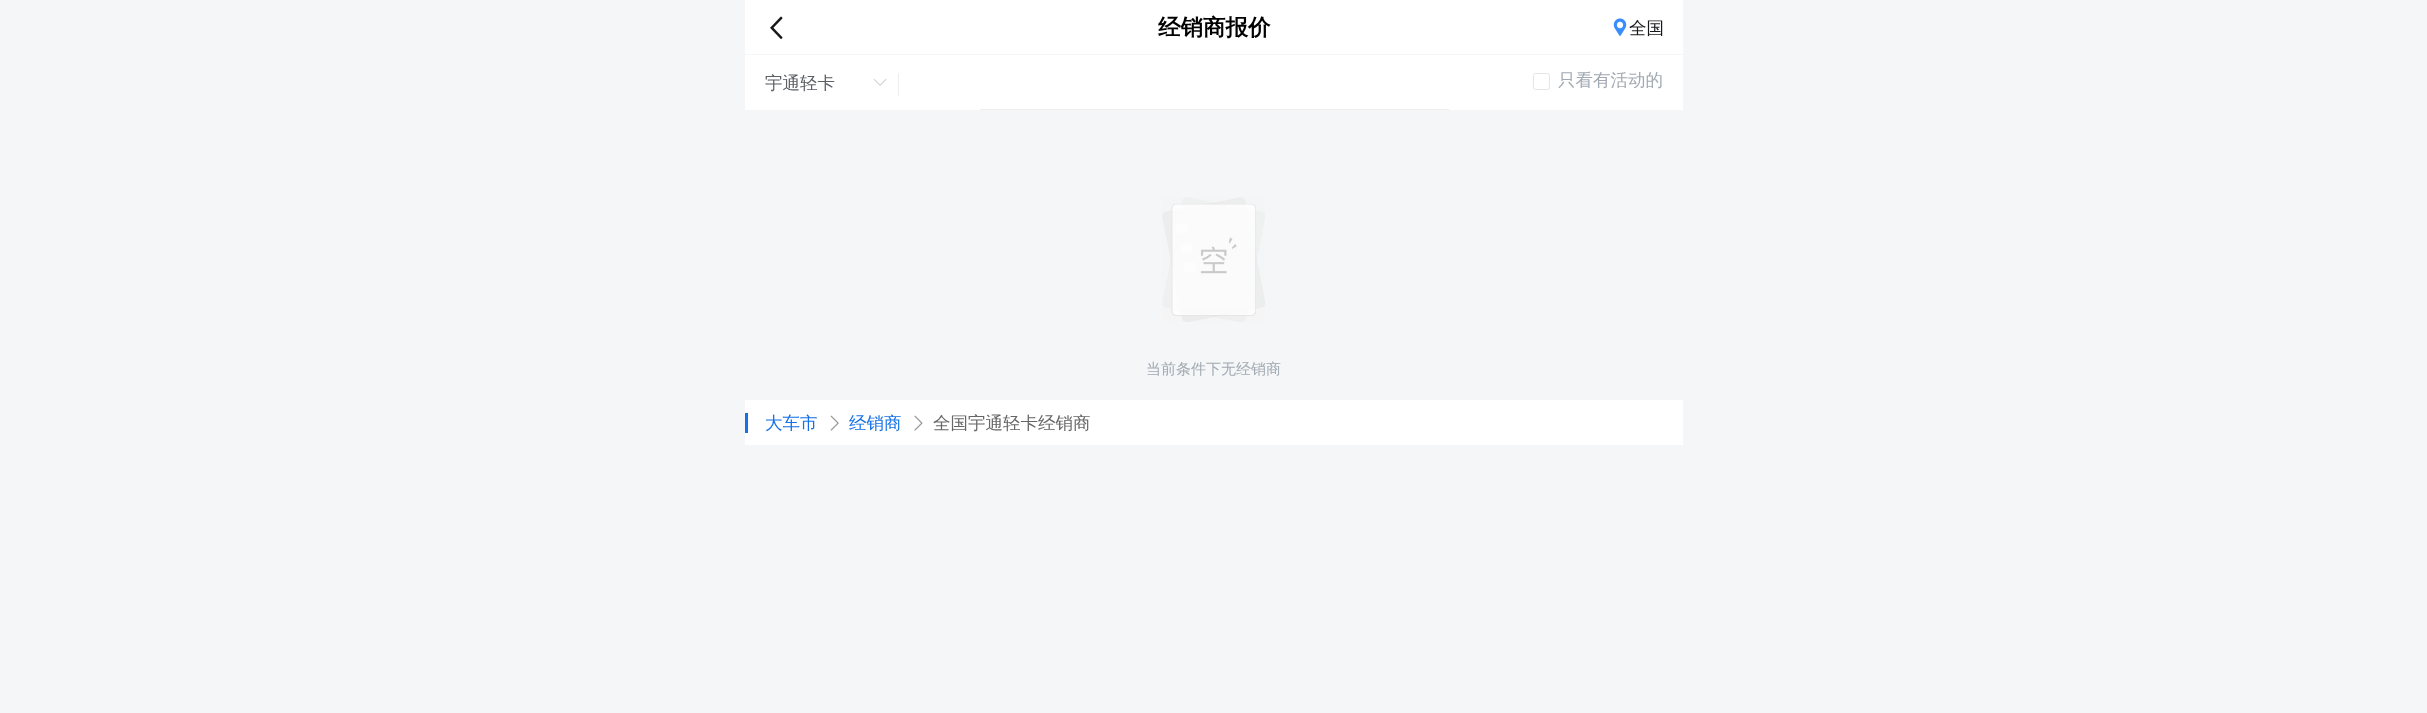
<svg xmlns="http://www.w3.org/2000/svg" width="2427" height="713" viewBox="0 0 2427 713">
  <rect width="100%" height="100%" fill="rgb(245,246,247)"/>
  <rect x="745" y="0" width="938" height="54" fill="rgb(255,255,255)"/>
  <image x="770" y="16" width="13" height="23" href="pic1.png"/>
  <text x="1158" y="35" font-family="WenQuanYi Zen Hei" font-size="22.5" font-weight="bold" fill="rgb(0,0,0)">经销商报价</text>
  <image x="1613" y="18" width="14" height="18" href="pic2.png"/>
  <text x="1629" y="34" font-family="WenQuanYi Zen Hei" font-size="17.5" font-weight="500" fill="rgb(23,24,26)">全国</text>
  <rect x="745" y="55" width="938" height="55" fill="rgb(255,255,255)"/>
  <text x="765" y="89" font-family="WenQuanYi Zen Hei" font-size="17.5" font-weight="500" fill="rgb(92,96,102)">宇通轻卡</text>
  <image x="873" y="79" width="14" height="7" href="pic3.png"/>
  <rect x="898" y="73" width="1" height="23" fill="rgb(237,237,237)"/>
  <rect x="1533.5" y="73.5" width="16" height="16" rx="2" fill="none" stroke="rgb(227,229,232)"/>
  <text x="1558" y="86" font-family="WenQuanYi Zen Hei" font-size="17.5" font-weight="500" fill="rgb(161,169,178)">只看有活动的</text>
  <rect x="980" y="109" width="469" height="1" rx="0.5" fill="rgb(237,237,237)"/>
  <image x="1162" y="197" width="103" height="125" href="pic4.png"/>
  <text x="1146" y="374" font-family="WenQuanYi Zen Hei" font-size="15" font-weight="500" fill="rgb(161,169,178)">当前条件下无经销商</text>
  <rect x="745" y="400" width="938" height="45" fill="rgb(255,255,255)"/>
  <rect x="745" y="413" width="3" height="20" fill="rgb(21,113,229)"/>
  <text x="765" y="429" font-family="WenQuanYi Zen Hei" font-size="17.5" font-weight="500" fill="rgb(21,113,229)">大车市</text>
  <image x="830" y="415" width="9" height="16" href="pic5.png"/>
  <text x="849" y="429" font-family="WenQuanYi Zen Hei" font-size="17.5" font-weight="500" fill="rgb(21,113,229)">经销商</text>
  <image x="914" y="415" width="9" height="16" href="pic6.png"/>
  <text x="933" y="429" font-family="WenQuanYi Zen Hei" font-size="17.5" font-weight="500" fill="rgb(102,102,102)">全国宇通轻卡经销商</text>
</svg>
